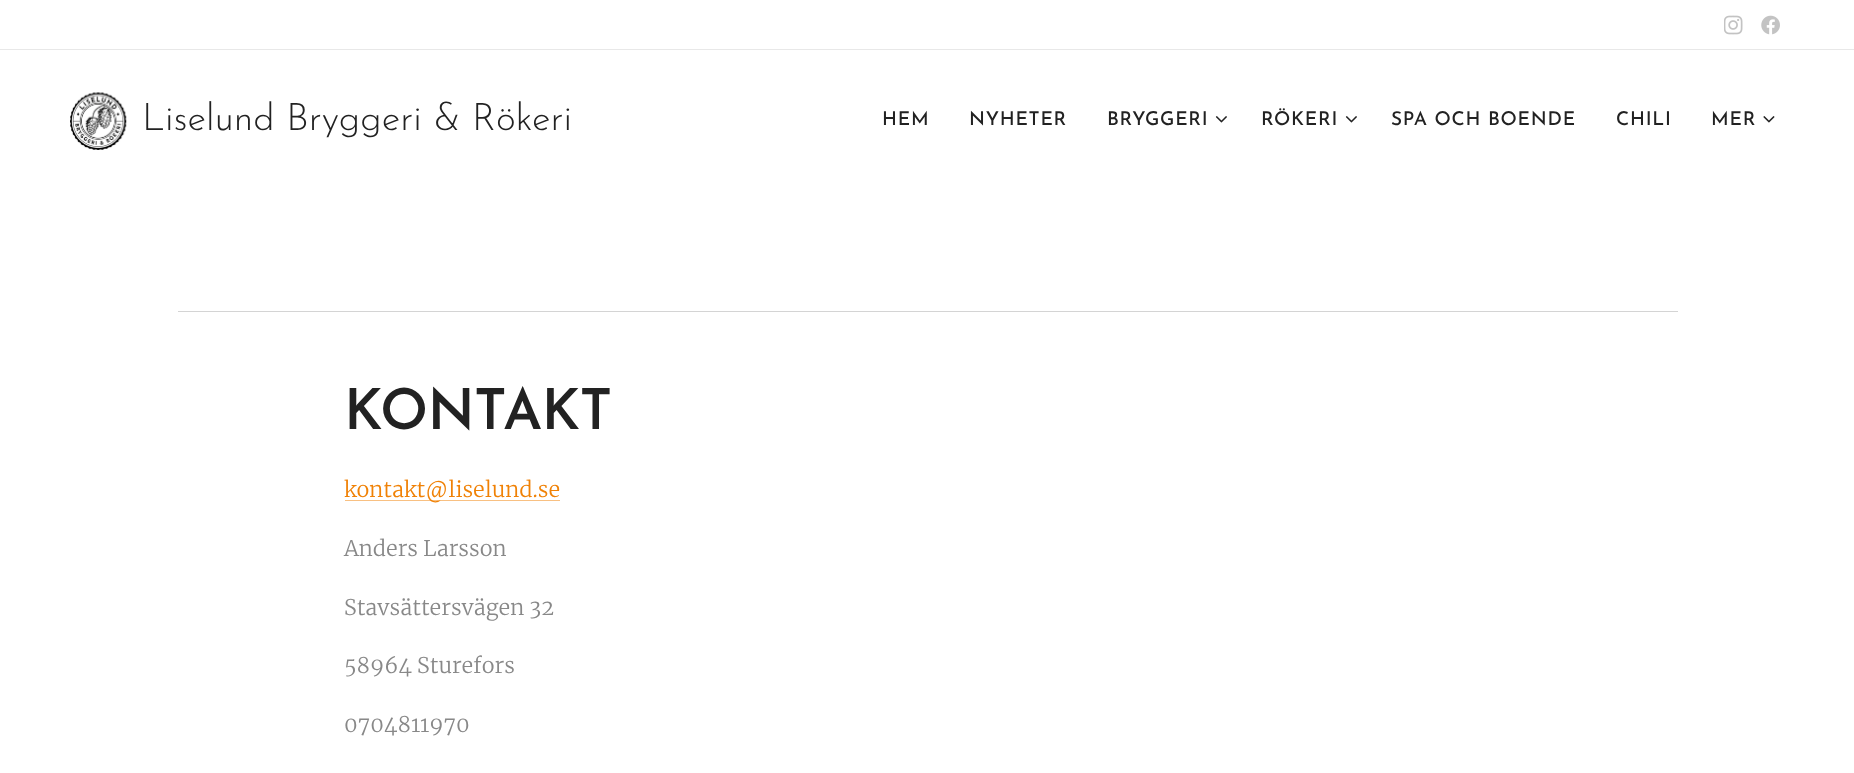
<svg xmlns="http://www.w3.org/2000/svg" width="1854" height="773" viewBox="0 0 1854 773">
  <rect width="100%" height="100%" fill="rgb(255,255,255)"/>
  <image x="1724" y="15" width="19" height="20" href="pic1.png"/>
  <image x="1761" y="15" width="19" height="20" href="pic2.png"/>
  <rect x="0" y="49" width="1854" height="1" fill="rgb(232,232,232)"/>
  <image x="70" y="92" width="57" height="58" href="pic3.png"/>
  <text x="142" y="130" font-family="Josefin Sans" font-size="38" font-weight="300" fill="rgb(34,34,34)">Liselund Bryggeri &amp; Rökeri</text>
  <g font-family="Josefin Sans" font-size="19" font-weight="500" letter-spacing="0.75" fill="rgb(34,34,34)">
    <text x="882" y="125">HEM</text>
    <text x="969" y="125">NYHETER</text>
    <text x="1107" y="125">BRYGGERI</text>
  </g>
  <image x="1215" y="116" width="12" height="7" href="pic4.png"/>
  <text x="1261" y="125" font-family="Josefin Sans" font-size="19" font-weight="500" letter-spacing="0.75" fill="rgb(34,34,34)">RÖKERI</text>
  <image x="1345" y="116" width="12" height="7" href="pic4.png"/>
  <g font-family="Josefin Sans" font-size="19" font-weight="500" letter-spacing="0.75" fill="rgb(34,34,34)">
    <text x="1391" y="125">SPA OCH BOENDE</text>
    <text x="1616" y="125">CHILI</text>
    <text x="1711" y="125">MER</text>
  </g>
  <image x="1763" y="116" width="12" height="7" href="pic5.png"/>
  <rect x="178" y="311" width="1500" height="1" fill="rgb(212,212,212)"/>
  <text x="344" y="429" font-family="Josefin Sans" font-size="56.25" font-weight="600" letter-spacing="-0.75" fill="rgb(34,34,34)">KONTAKT</text>
  <rect x="345" y="500" width="215" height="1" fill="rgb(248,192,130)"/>
  <text x="344" y="497" font-family="Merriweather" font-size="21.5" font-weight="300" fill="rgb(240,129,5)">kontakt@liselund.se</text>
  <g font-family="Merriweather" font-size="21.5" font-weight="300" fill="rgb(136,136,136)">
    <text x="344" y="556">Anders Larsson</text>
    <text x="344" y="615">Stavsättersvägen 32</text>
    <text x="344" y="673">58964 Sturefors</text>
    <text x="344" y="732">0704811970</text>
  </g>
</svg>
